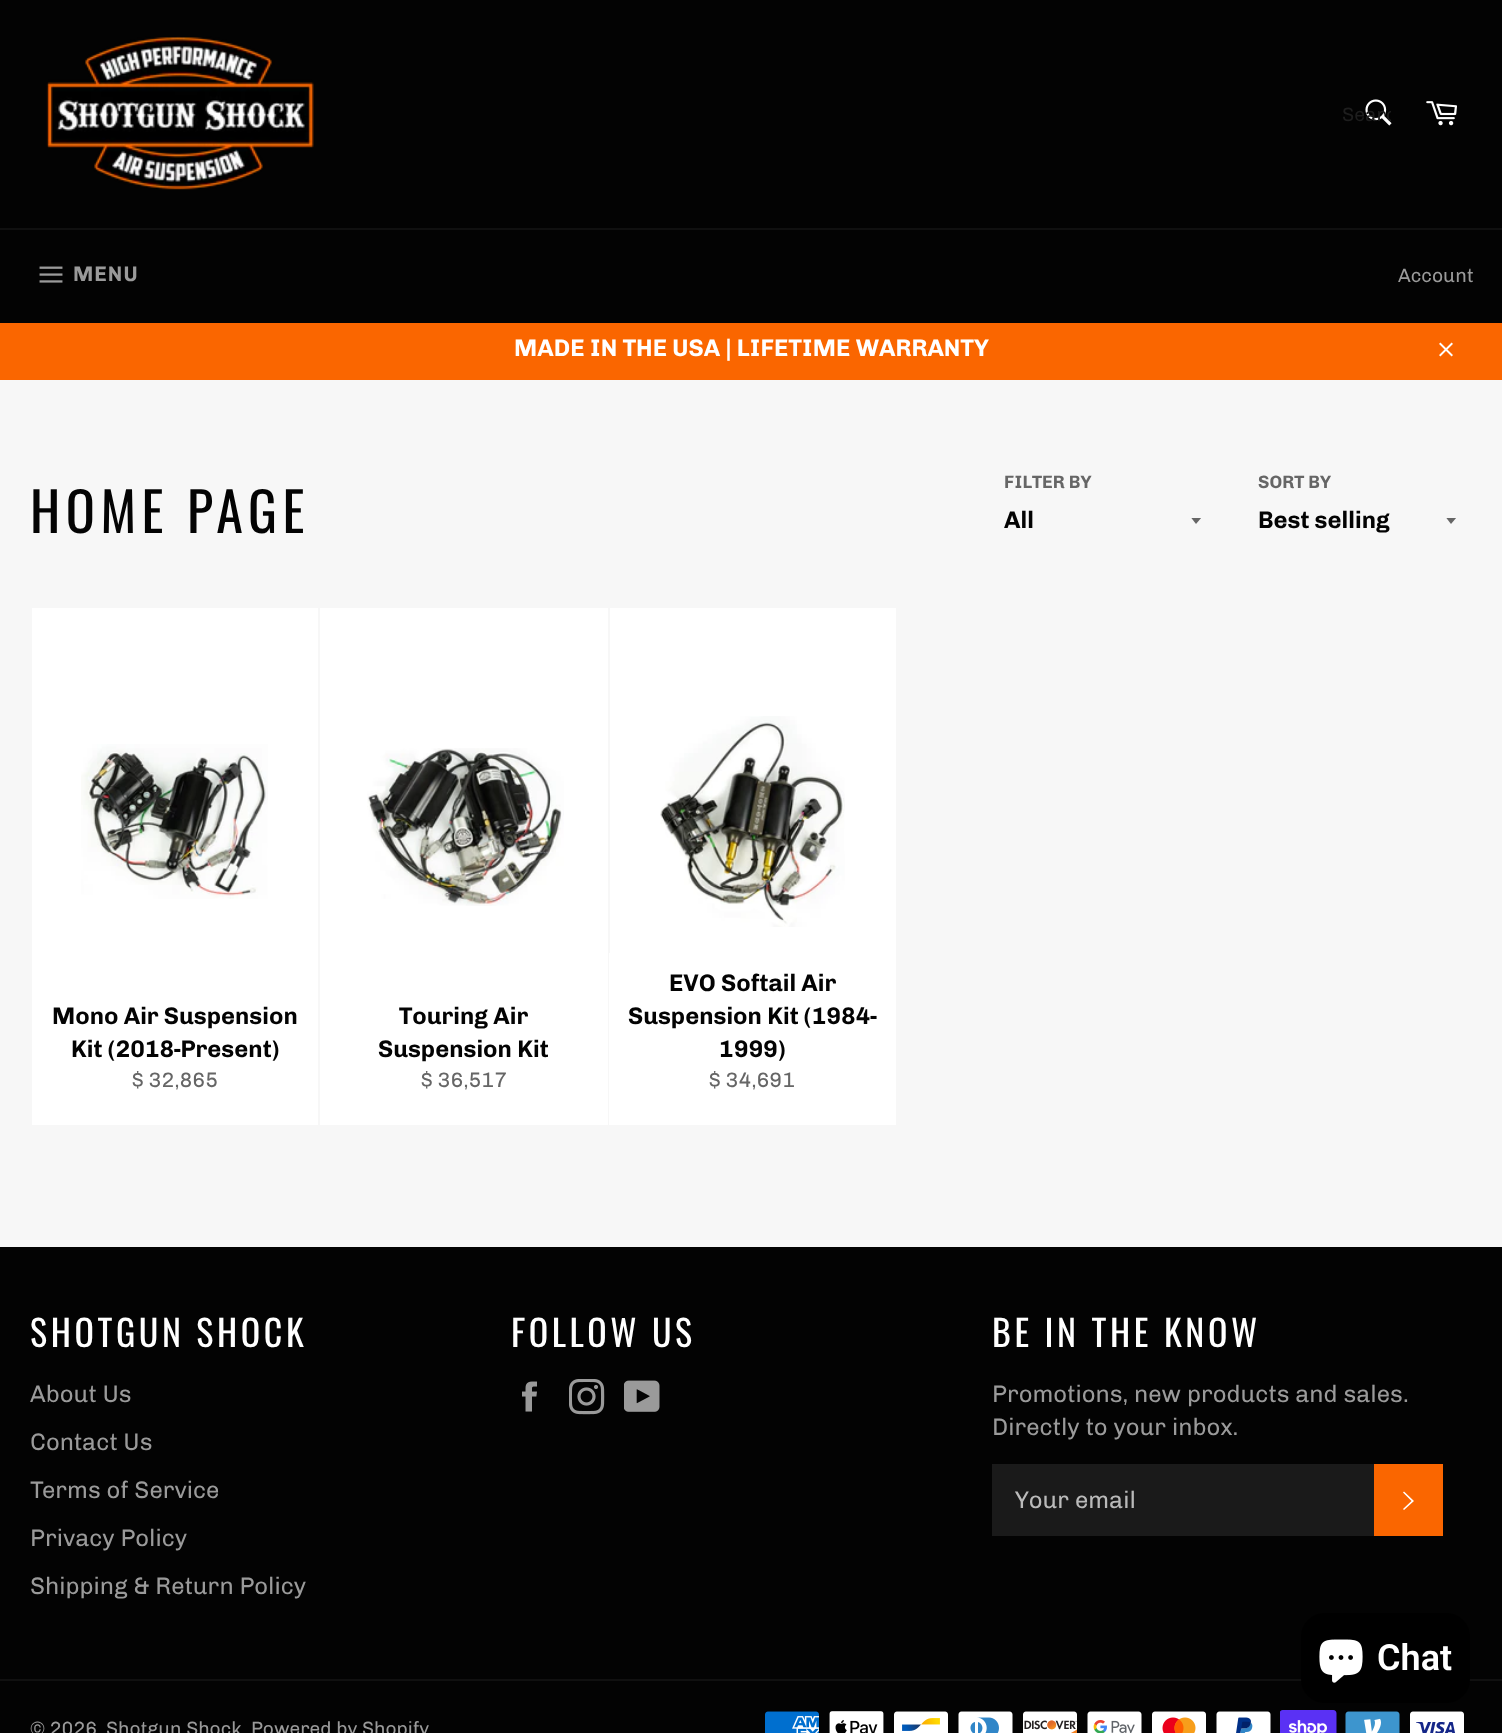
<svg xmlns="http://www.w3.org/2000/svg" width="1502" height="1733" viewBox="0 0 1502 1733">
  <defs>
    <clipPath id="clip1"><rect x="1343" y="104" width="48" height="22"/></clipPath>
    <clipPath id="clip2"><rect x="1191" y="518" width="12" height="7"/></clipPath>
    <clipPath id="clip3"><rect x="1446" y="518" width="12" height="7"/></clipPath>
  </defs>
  <rect width="100%" height="100%" fill="rgb(247,247,247)"/>
  <rect x="0" y="0" width="1502" height="228" fill="rgb(3,3,3)"/>
  <image x="46" y="36" width="268" height="154" href="pic1.png"/>
  <image x="1365" y="99" width="27" height="27" href="pic2.png"/>
  <g clip-path="url(#clip1)">
    <text x="1342" y="121" font-family="'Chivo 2'" font-size="19.5" fill="rgb(30,30,30)">Searc</text>
  </g>
  <image x="1426" y="101" width="31" height="25" href="pic3.png"/>
  <rect x="0" y="230" width="1502" height="93" fill="rgb(3,3,3)"/>
  <rect x="0" y="228" width="1502" height="2" fill="rgb(16,16,16)"/>
  <image x="39" y="266" width="24" height="17" href="pic4.png"/>
  <text x="73" y="281" font-family="Chivo" font-size="21" letter-spacing="1" fill="rgb(154,154,154)">MENU</text>
  <text x="1398" y="282" font-family="'Chivo 2'" font-size="19.5" fill="rgb(154,154,154)">Account</text>
  <rect x="0" y="323" width="1502" height="57" fill="rgb(250,102,0)"/>
  <text x="514" y="356" font-family="Chivo" font-size="24" fill="rgb(255,255,255)">MADE IN THE USA | LIFETIME WARRANTY</text>
  <image x="1439" y="342" width="14" height="15" href="pic5.png"/>
  <text x="30" y="533" font-family="Oswald" font-size="54" letter-spacing="5.5" fill="rgb(3,3,3)">HOME PAGE</text>
  <text x="1004" y="488" font-family="Chivo" font-size="18" fill="rgb(102,102,102)">FILTER BY</text>
  <g clip-path="url(#clip2)">
    <path d="M1191 517.5L1196 524L1201.5 517.5Z" fill="rgb(102,102,102)"/>
  </g>
  <text x="1004" y="528" font-family="Chivo" font-size="24" fill="rgb(3,3,3)">All</text>
  <text x="1258" y="488" font-family="Chivo" font-size="18" fill="rgb(102,102,102)">SORT BY</text>
  <g clip-path="url(#clip3)">
    <path d="M1446 517.5L1451 524L1456.5 517.5Z" fill="rgb(102,102,102)"/>
  </g>
  <text x="1258" y="528" font-family="Chivo" font-size="24" fill="rgb(3,3,3)">Best selling</text>
  <rect x="32" y="608" width="286" height="517" fill="rgb(255,255,255)"/>
  <image x="81" y="744" width="187" height="155" href="pic6.png"/>
  <g font-family="Chivo" font-size="24" fill="rgb(3,3,3)">
    <text x="52" y="1024">Mono Air Suspension</text>
    <text x="71" y="1057">Kit (2018-Present)</text>
  </g>
  <text x="132" y="1087" font-family="'Chivo 2'" font-size="21" fill="rgb(102,102,102)">$ 32,865</text>
  <rect x="320" y="608" width="288" height="517" fill="rgb(255,255,255)"/>
  <image x="367" y="748" width="197" height="158" href="pic7.png"/>
  <g font-family="Chivo" font-size="24" fill="rgb(3,3,3)">
    <text x="399" y="1024">Touring Air</text>
    <text x="378" y="1057">Suspension Kit</text>
  </g>
  <text x="421" y="1087" font-family="'Chivo 2'" font-size="21" fill="rgb(102,102,102)">$ 36,517</text>
  <rect x="610" y="608" width="286" height="345" fill="rgb(255,255,255)"/>
  <image x="660" y="716" width="185" height="211" href="pic8.png"/>
  <rect x="609" y="953" width="287" height="172" fill="rgb(255,255,255)"/>
  <g font-family="Chivo" font-size="24" fill="rgb(3,3,3)">
    <text x="669" y="991">EVO Softail Air</text>
    <text x="628" y="1024">Suspension Kit (1984-</text>
    <text x="719" y="1057">1999)</text>
  </g>
  <text x="709" y="1087" font-family="'Chivo 2'" font-size="21" fill="rgb(102,102,102)">$ 34,691</text>
  <rect x="0" y="1247" width="1502" height="486" fill="rgb(3,3,3)"/>
  <text x="30" y="1347" font-family="Oswald" font-size="36" letter-spacing="3.6" fill="rgb(255,255,255)">SHOTGUN SHOCK</text>
  <g font-family="'Chivo 2'" font-size="24" fill="rgb(154,154,154)">
    <text x="30" y="1402">About Us</text>
    <text x="30" y="1450">Contact Us</text>
    <text x="30" y="1498">Terms of Service</text>
    <text x="30" y="1546">Privacy Policy</text>
    <text x="30" y="1594">Shipping &amp; Return Policy</text>
  </g>
  <text x="511" y="1347" font-family="Oswald" font-size="36" letter-spacing="3.6" fill="rgb(255,255,255)">FOLLOW US</text>
  <image x="522" y="1381" width="15" height="31" href="pic9.png"/>
  <image x="569" y="1379" width="36" height="36" href="pic10.png"/>
  <image x="624" y="1380" width="36" height="32" href="pic11.png"/>
  <text x="992" y="1347" font-family="Oswald" font-size="36" letter-spacing="3.6" fill="rgb(255,255,255)">BE IN THE KNOW</text>
  <g font-family="'Chivo 2'" font-size="24" fill="rgb(154,154,154)">
    <text>
      <tspan x="992" y="1402">Promotions, new products and sales.</tspan>
      <tspan x="992" y="1435">Directly to your inbox.</tspan>
    </text>
  </g>
  <rect x="992" y="1464" width="382" height="72" fill="rgb(26,26,26)"/>
  <text x="1015" y="1508" font-family="'Chivo 2'" font-size="24" fill="rgb(186,186,186)">Your email</text>
  <rect x="1374" y="1464" width="69" height="72" fill="rgb(250,102,0)"/>
  <path d="M1403 1492.5L1404 1491.5L1414 1501L1404 1510L1403 1509L1411.5 1501Z" fill="rgb(255,255,255)"/>
  <rect x="0" y="1679" width="1502" height="2" fill="rgb(16,16,16)"/>
  <g font-family="'Chivo 2'" font-size="19.25" fill="rgb(154,154,154)">
    <text x="30" y="1735">© 2026</text>
    <text x="106" y="1735">Shotgun Shock</text>
    <text x="251" y="1735">Powered by Shopify</text>
  </g>
  <image x="765" y="1711" width="54" height="22" href="pic12.png"/>
  <image x="829" y="1711" width="55" height="22" href="pic13.png"/>
  <image x="894" y="1711" width="54" height="22" href="pic14.png"/>
  <image x="958" y="1711" width="55" height="22" href="pic15.png"/>
  <image x="1023" y="1711" width="54" height="22" href="pic16.png"/>
  <image x="1087" y="1711" width="55" height="22" href="pic17.png"/>
  <image x="1152" y="1711" width="54" height="22" href="pic18.png"/>
  <image x="1216" y="1711" width="55" height="22" href="pic19.png"/>
  <image x="1280" y="1710" width="57" height="23" href="pic20.png"/>
  <image x="1345" y="1711" width="55" height="22" href="pic21.png"/>
  <image x="1410" y="1711" width="54" height="22" href="pic22.png"/>
  <rect x="1301" y="1613" width="169" height="90" rx="24" fill="rgb(0,0,0)"/>
  <image x="1319" y="1639" width="44" height="44" href="pic23.png"/>
  <text x="1377" y="1670" font-family="Roboto" font-size="36" font-weight="600" fill="rgb(255,255,255)">Chat</text>
</svg>
